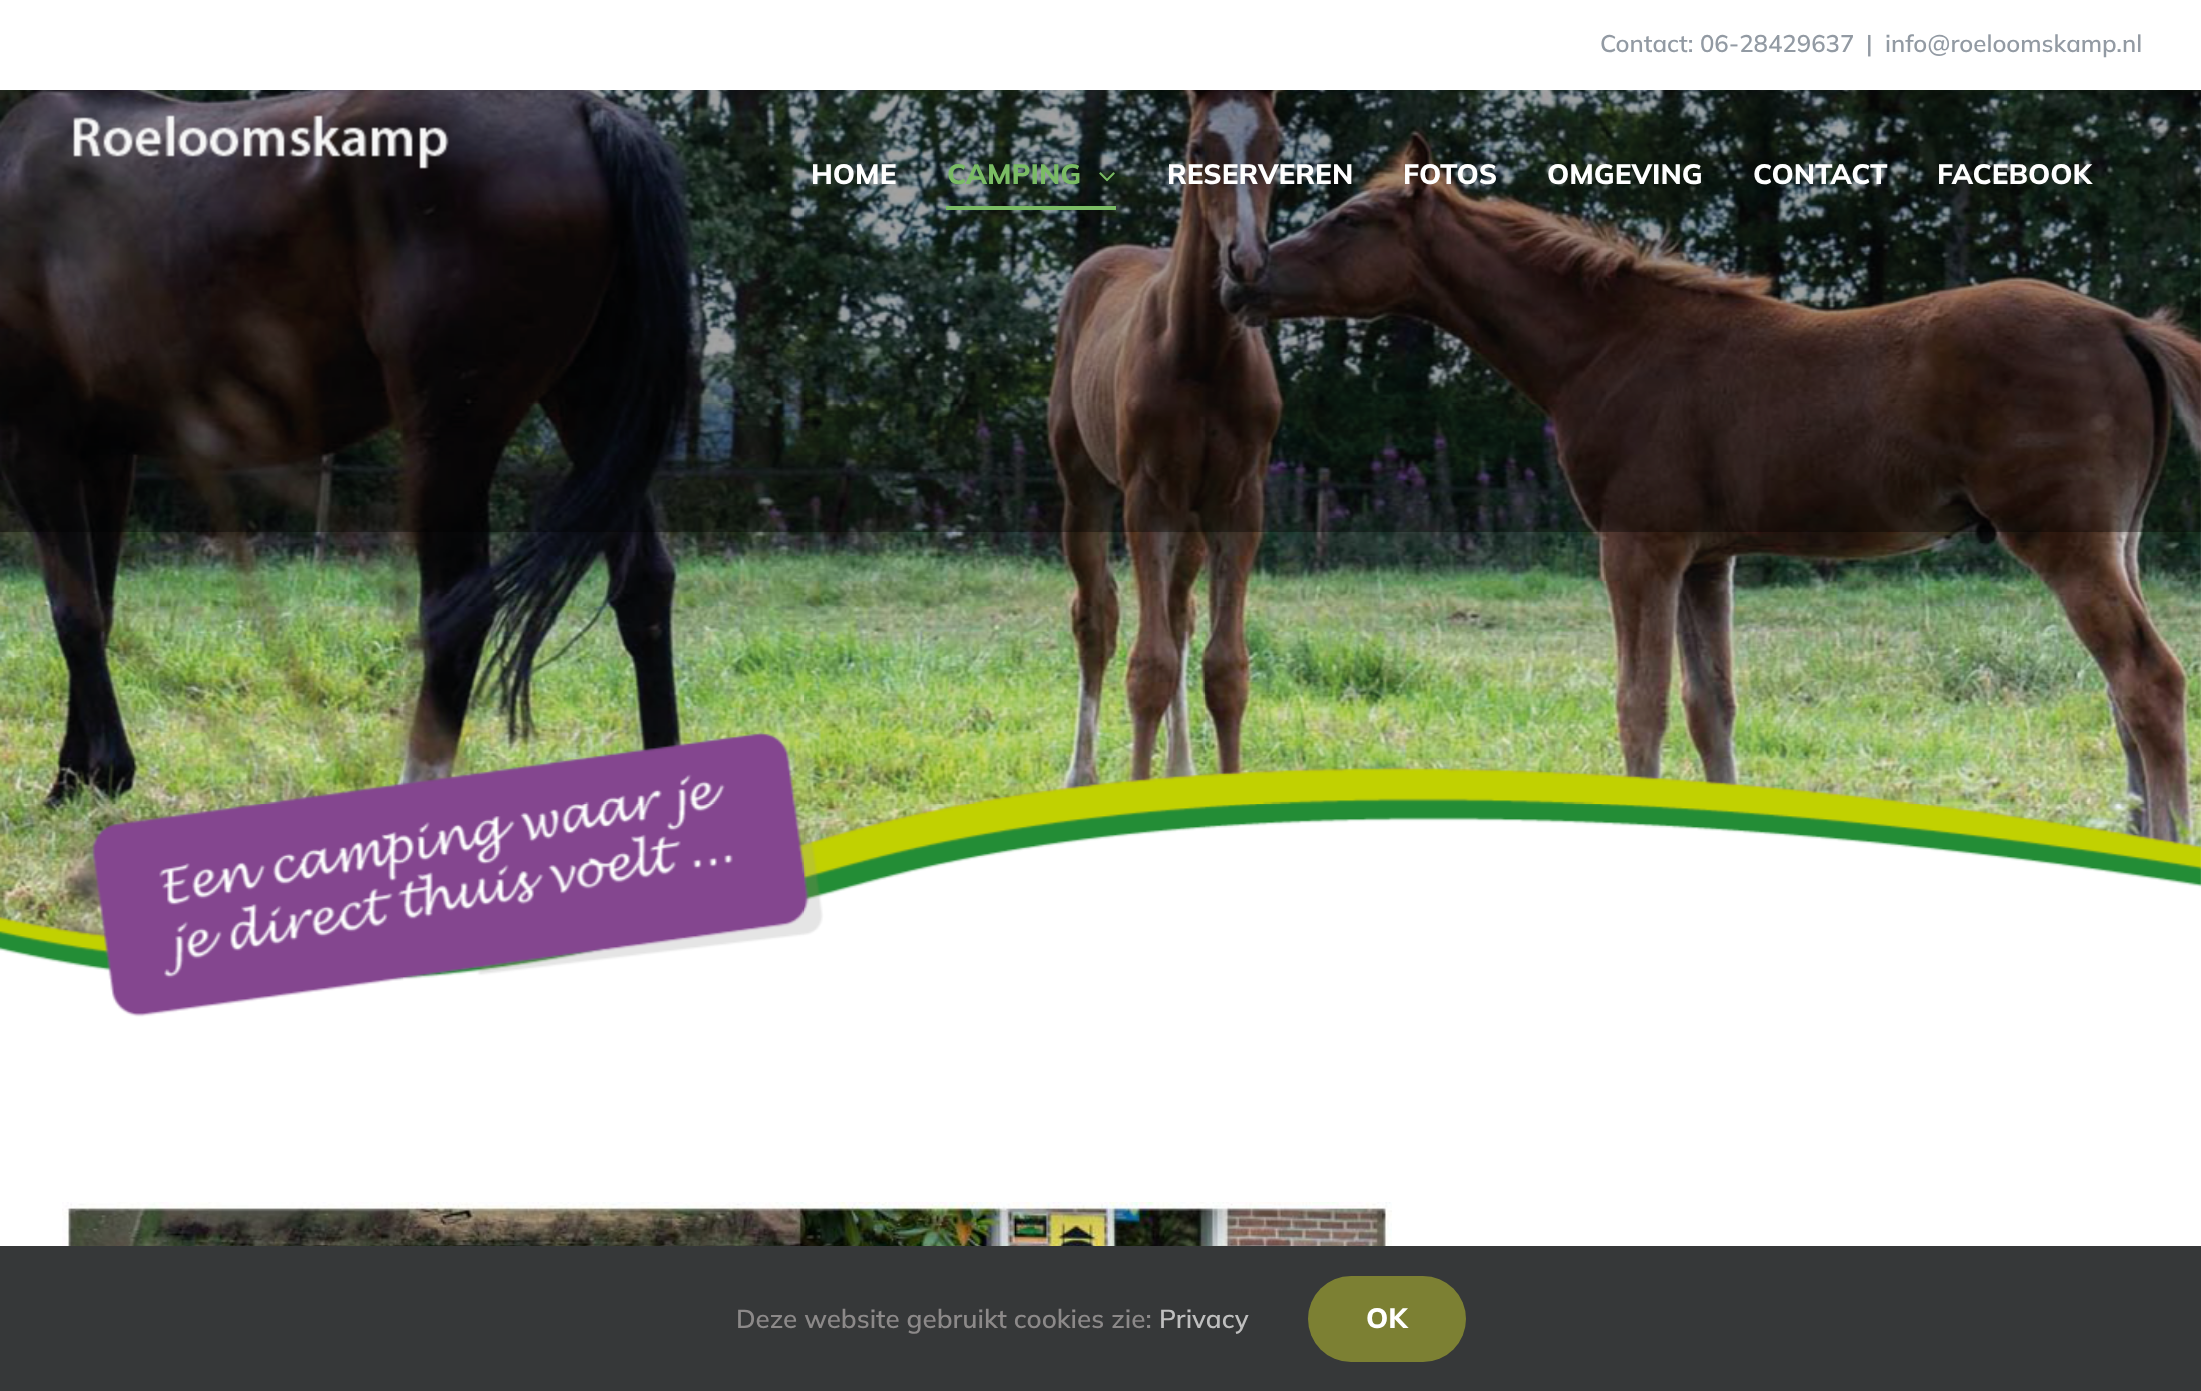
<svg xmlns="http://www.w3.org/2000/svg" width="2201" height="1391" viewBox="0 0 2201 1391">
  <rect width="100%" height="100%" fill="rgb(255,255,255)"/>
  <g font-family="Mulish" font-size="24" font-weight="600" fill="rgb(146,154,163)">
    <text x="1600" y="52">Contact: 06-28429637</text>
    <text x="1866" y="52">|</text>
    <text x="1885" y="52">info@roeloomskamp.nl</text>
  </g>
  <image x="0" y="90" width="2201" height="927" href="pic3.png"/>
  <rect x="0" y="90" width="2201" height="442" fill="rgba(0,0,0,0.36)"/>
  <image x="73" y="115" width="376" height="54" href="pic1.png"/>
  <text x="811" y="184" font-family="Mulish" font-size="28" font-weight="800" fill="rgb(255,255,255)">HOME</text>
  <text x="947" y="184" font-family="Mulish" font-size="28" font-weight="800" fill="rgb(122,188,100)">CAMPING</text>
  <image x="1099" y="172" width="16" height="10" href="pic2.png"/>
  <rect x="946" y="206" width="170" height="4" fill="rgb(122,188,100)"/>
  <g font-family="Mulish" font-size="28" font-weight="800" fill="rgb(255,255,255)">
    <text x="1167" y="184">RESERVEREN</text>
    <text x="1403" y="184">FOTOS</text>
    <text x="1547" y="184">OMGEVING</text>
    <text x="1753" y="184">CONTACT</text>
    <text x="1937" y="184">FACEBOOK</text>
  </g>
  <image x="62" y="1202" width="1330" height="44" href="pic4.png"/>
  <rect x="0" y="1246" width="2201" height="145" fill="rgb(54,56,57)"/>
  <text x="736" y="1328" font-family="Mulish" font-size="26" font-weight="600" fill="rgb(140,137,137)">Deze website gebruikt cookies zie:</text>
  <text x="1159" y="1328" font-family="Mulish" font-size="26" font-weight="600" fill="rgb(191,191,191)">Privacy</text>
  <rect x="1308" y="1276" width="158" height="86" rx="43" fill="rgb(124,128,51)"/>
  <text x="1366" y="1328" font-family="Mulish" font-size="28" font-weight="800" fill="rgb(255,255,255)">OK</text>
</svg>
